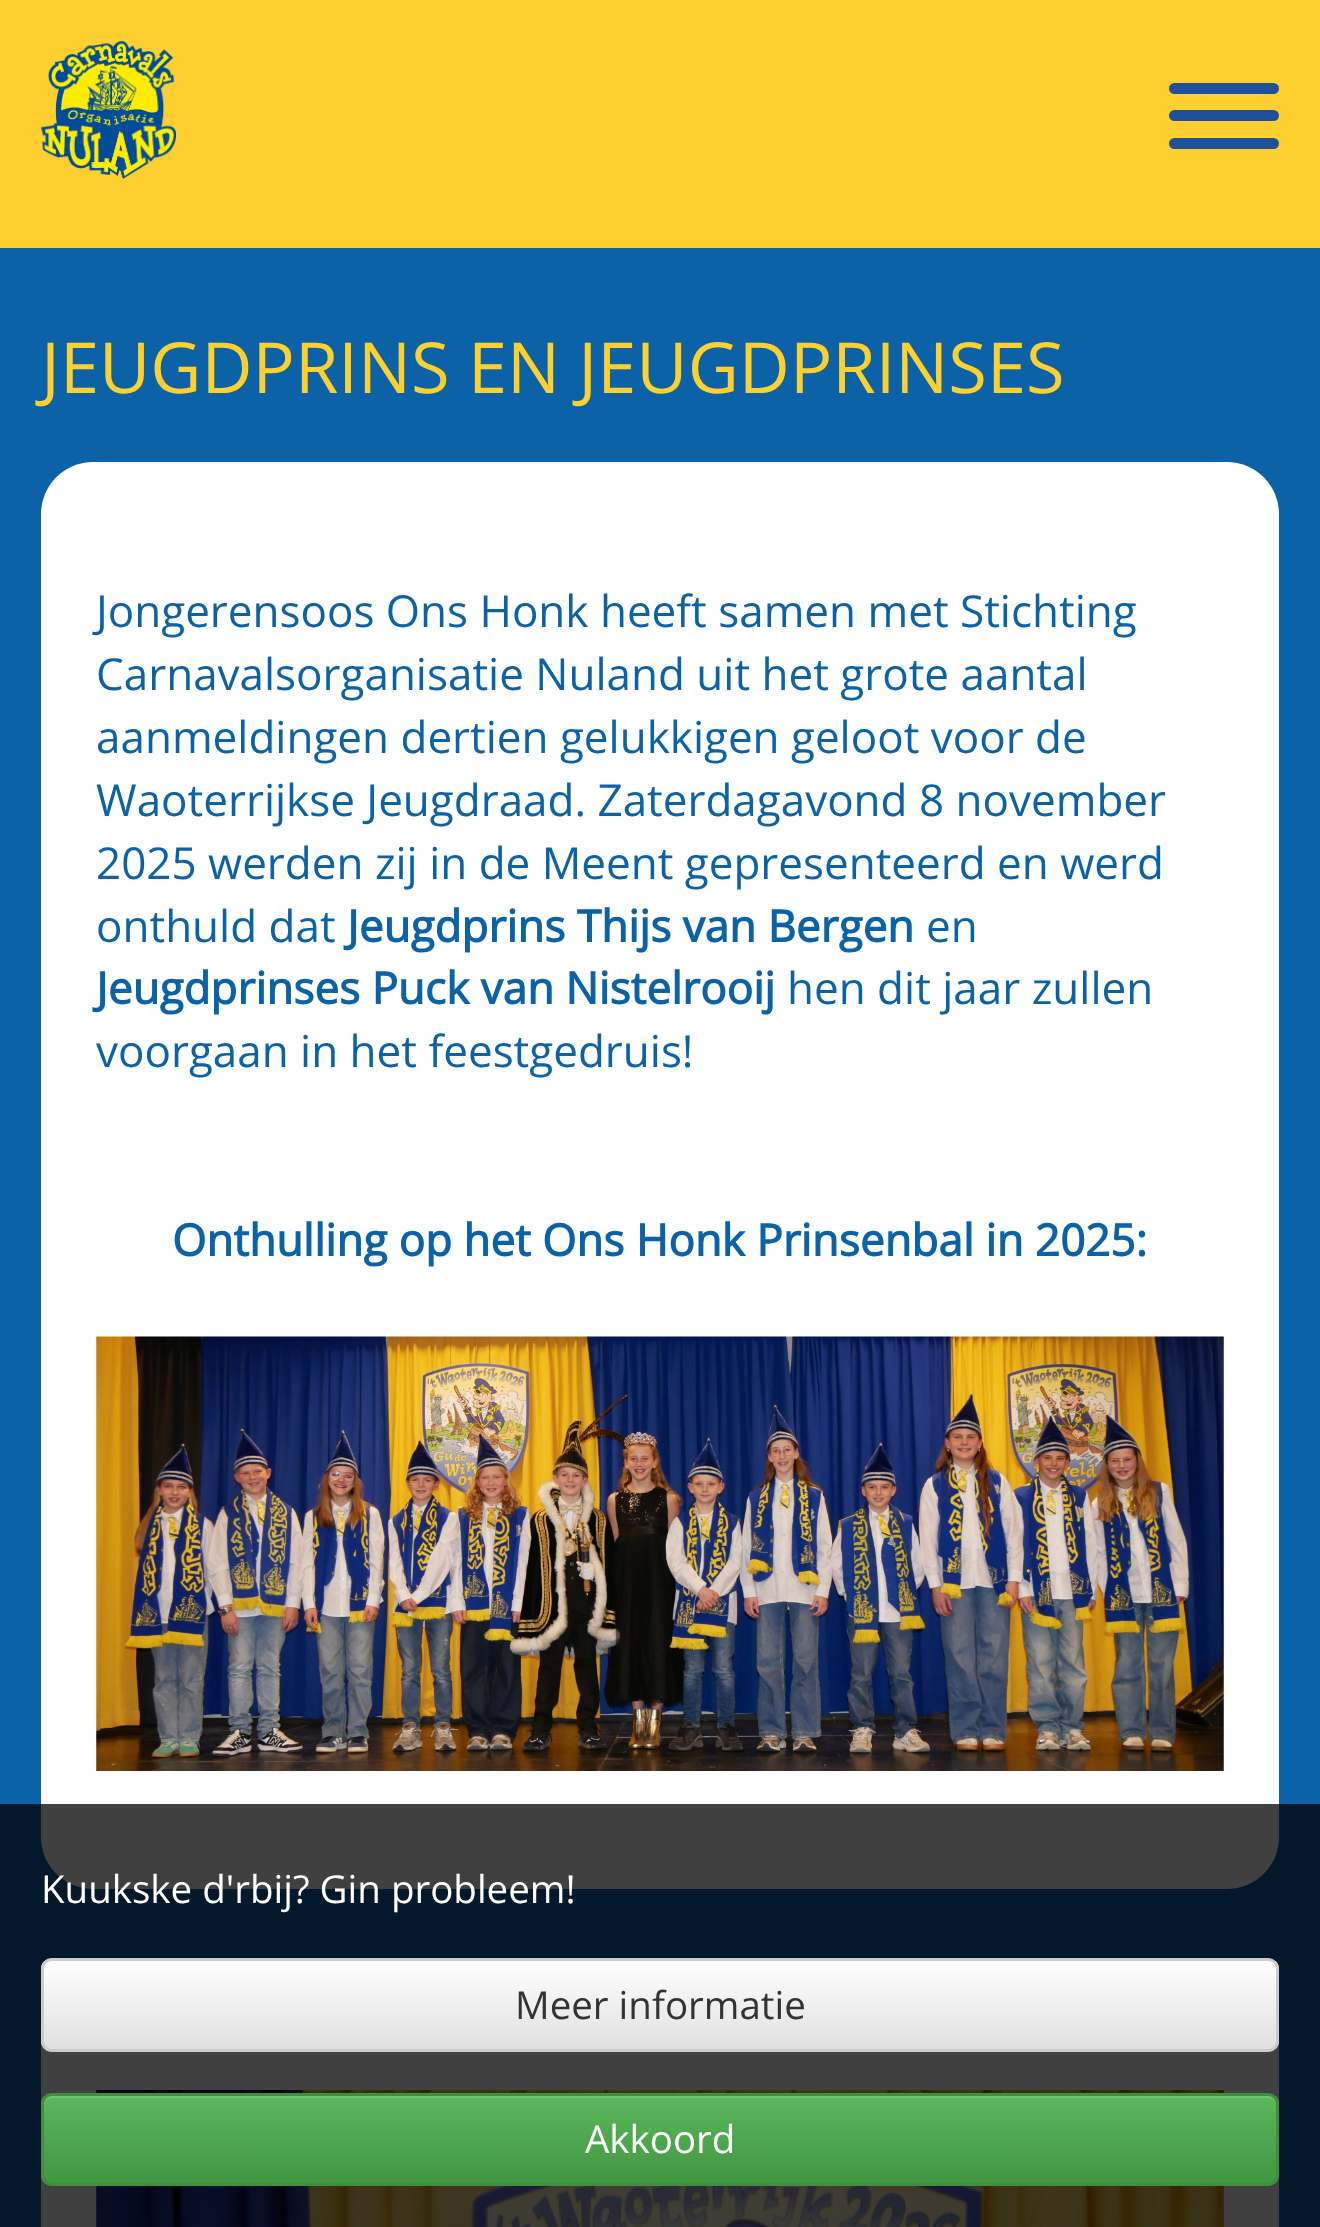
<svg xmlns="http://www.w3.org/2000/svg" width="1320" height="2227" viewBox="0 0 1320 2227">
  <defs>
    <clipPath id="clip1"><rect x="41" y="1958" width="1238" height="94" rx="11"/></clipPath>
    <linearGradient id="g1" gradientUnits="userSpaceOnUse" x1="660" y1="1961" x2="660" y2="2049"><stop offset="0" stop-color="rgb(255,255,255)"/><stop offset="1" stop-color="rgb(224,224,224)"/></linearGradient>
    <clipPath id="clip2"><rect x="41" y="2093" width="1238" height="93" rx="11"/></clipPath>
    <linearGradient id="g2" gradientUnits="userSpaceOnUse" x1="660" y1="2096" x2="660" y2="2184"><stop offset="0" stop-color="rgb(92,184,92)"/><stop offset="1" stop-color="rgb(65,150,65)"/></linearGradient>
  </defs>
  <rect width="100%" height="100%" fill="rgb(12,98,166)"/>
  <rect x="0" y="0" width="1320" height="248" fill="rgb(254,208,47)"/>
  <image x="41" y="41" width="135" height="138" href="pic1.png"/>
  <rect x="1169" y="110" width="110" height="11" rx="5.5" fill="rgb(33,80,154)"/>
  <rect x="1169" y="83" width="110" height="11" rx="5.5" fill="rgb(33,80,154)"/>
  <rect x="1169" y="138" width="110" height="11" rx="5.5" fill="rgb(33,80,154)"/>
  <text x="41" y="393" font-family="Open Sans" font-size="70.4" fill="rgb(254,208,47)">JEUGDPRINS EN JEUGDPRINSES</text>
  <rect x="41" y="462" width="1238" height="1427" rx="52" fill="rgb(255,255,255)"/>
  <g font-family="Open Sans" font-size="44" fill="rgb(12,98,166)">
    <text>
      <tspan x="96" y="627">Jongerensoos Ons Honk heeft samen met Stichting</tspan>
      <tspan x="96" y="690">Carnavalsorganisatie Nuland uit het grote aantal</tspan>
      <tspan x="96" y="753">aanmeldingen dertien gelukkigen geloot voor de</tspan>
      <tspan x="96" y="816">Waoterrijkse Jeugdraad. Zaterdagavond 8 november</tspan>
      <tspan x="96" y="879">2025 werden zij in de Meent gepresenteerd en werd</tspan>
      <tspan x="96" y="942">onthuld dat</tspan>
    </text>
  </g>
  <text x="347" y="942" font-family="Open Sans" font-size="44" font-weight="bold" fill="rgb(12,98,166)">Jeugdprins Thijs van Bergen</text>
  <text x="926" y="942" font-family="Open Sans" font-size="44" fill="rgb(12,98,166)">en</text>
  <text x="96" y="1004" font-family="Open Sans" font-size="44" font-weight="bold" fill="rgb(12,98,166)">Jeugdprinses Puck van Nistelrooij</text>
  <g font-family="Open Sans" font-size="44" fill="rgb(12,98,166)">
    <text x="787" y="1004">hen dit jaar zullen</text>
    <text x="96" y="1067">voorgaan in het feestgedruis!</text>
  </g>
  <text x="172" y="1256" font-family="Open Sans" font-size="44" font-weight="bold" fill="rgb(12,98,166)">Onthulling op het Ons Honk Prinsenbal in 2025:</text>
  <image x="96" y="1336" width="1128" height="435" href="pic2.png"/>
  <rect x="41" y="2041" width="1238" height="186" fill="rgb(255,255,255)"/>
  <image x="96" y="2090" width="1128" height="137" href="pic3.png"/>
  <rect x="0" y="1804" width="1320" height="423" fill="rgba(0,0,0,0.75)"/>
  <text x="41" y="1903" font-family="Open Sans" font-size="38.5" fill="rgb(255,255,255)">Kuukske d'rbij? Gin probleem!</text>
  <g clip-path="url(#clip1)">
    <rect x="41" y="1961" width="1238" height="88" fill="url(#g1)"/>
  </g>
  <rect x="42.5" y="1959.5" width="1235" height="91" rx="9.5" fill="none" stroke="rgb(204,204,204)" stroke-width="3"/>
  <text x="515" y="2019" font-family="Open Sans" font-size="38.5" fill="rgb(51,51,51)">Meer informatie</text>
  <g clip-path="url(#clip2)">
    <rect x="41" y="2096" width="1238" height="88" fill="url(#g2)"/>
  </g>
  <path d="M52 2098H1268C1272 2098 1276 2102 1276 2106V2104C1276 2100 1272 2096 1268 2096H52C48 2096 44 2100 44 2104V2106C44 2102 48 2098 52 2098Z" fill="rgba(255,255,255,0.15)"/>
  <rect x="42.5" y="2094.5" width="1235" height="90" rx="9.5" fill="none" stroke="rgb(62,143,62)" stroke-width="3"/>
  <text x="585" y="2153" font-family="Open Sans" font-size="38.5" fill="rgb(255,255,255)">Akkoord</text>
</svg>
